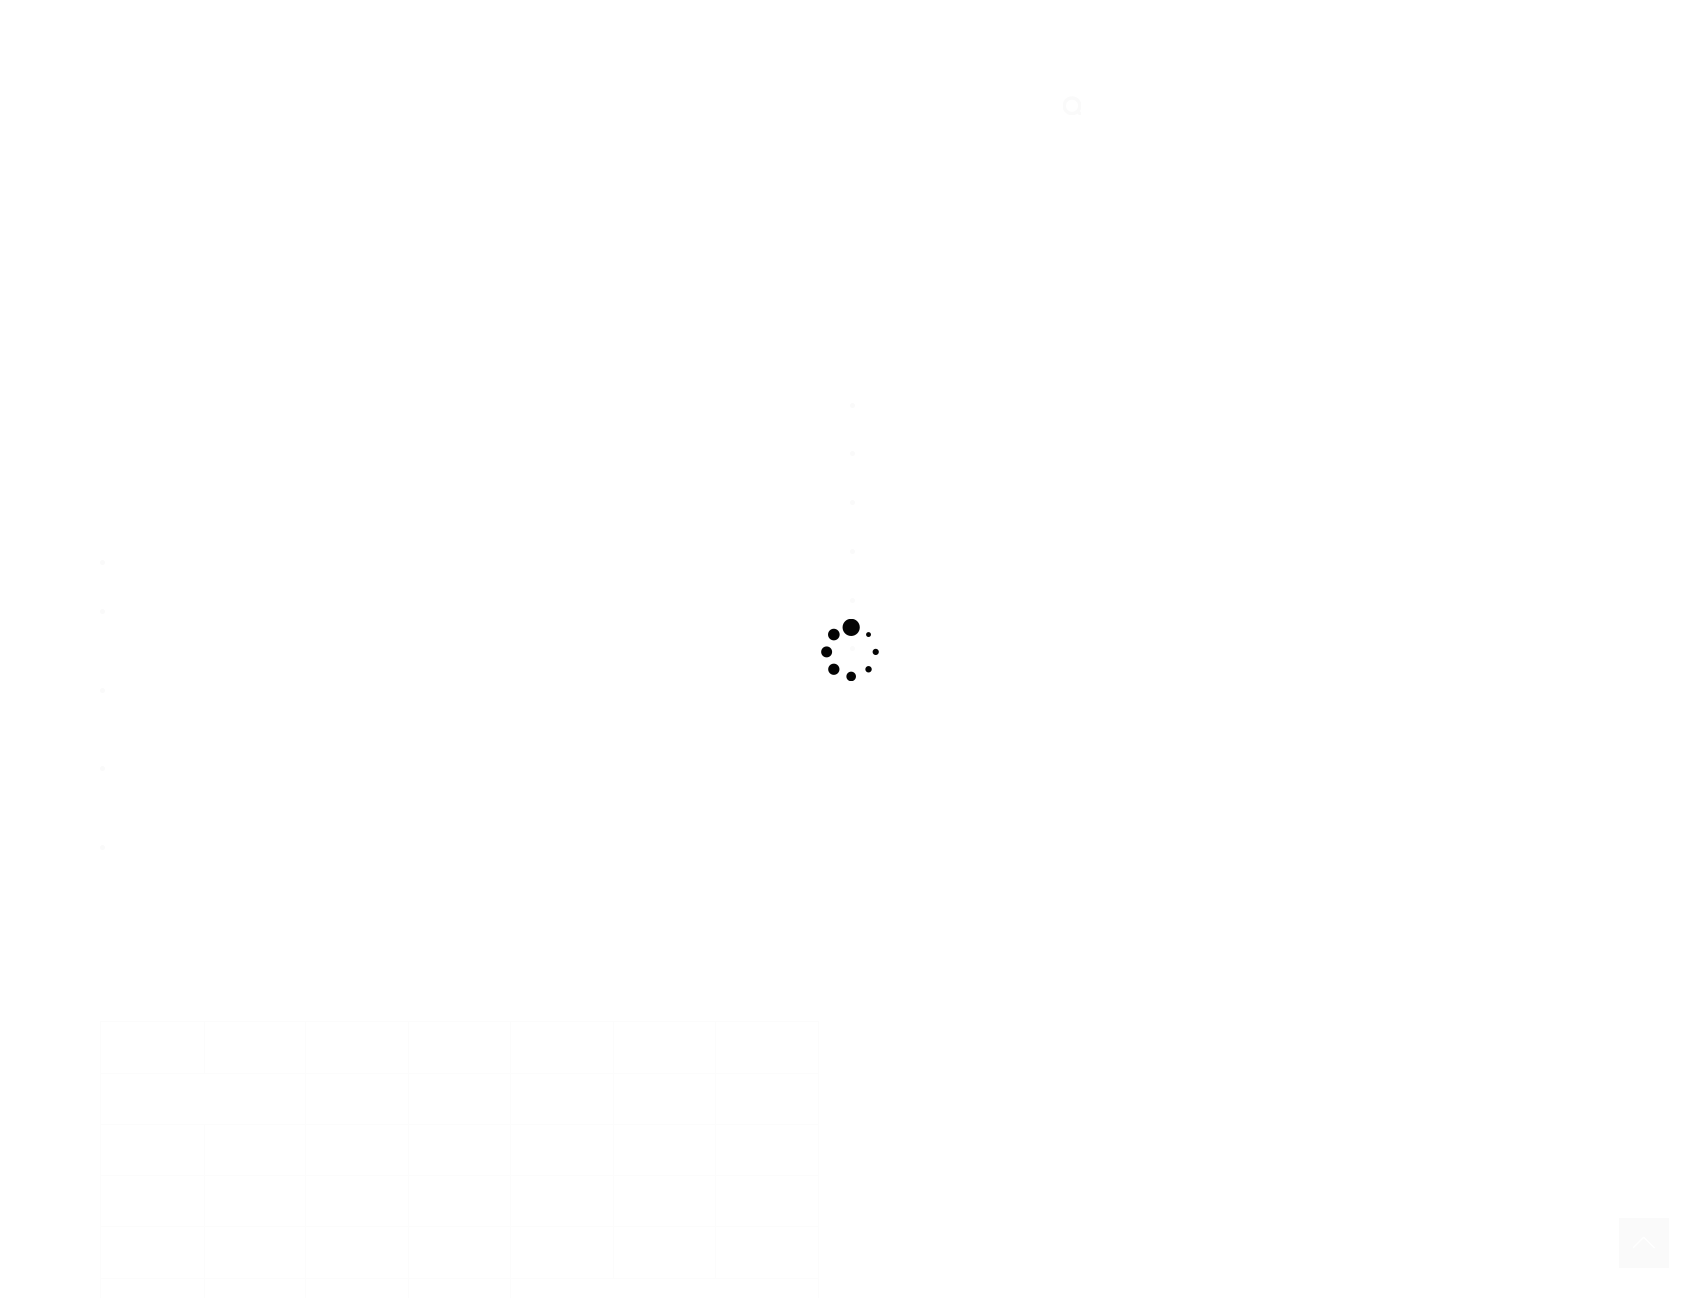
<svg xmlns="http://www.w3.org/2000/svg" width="1699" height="1298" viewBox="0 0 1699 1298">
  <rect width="100%" height="100%" fill="rgb(255,255,255)"/>
  <image x="1063" y="96" width="18" height="19" href="pic1.png"/>
  <circle cx="852.5" cy="405.5" r="2.5" fill="rgb(250,250,250)"/>
  <circle cx="852.5" cy="453.5" r="2.5" fill="rgb(250,250,250)"/>
  <circle cx="852.5" cy="502.5" r="2.5" fill="rgb(250,250,250)"/>
  <circle cx="852.5" cy="551.5" r="2.5" fill="rgb(250,250,250)"/>
  <circle cx="852.5" cy="600.5" r="2.5" fill="rgb(250,250,250)"/>
  <circle cx="852.5" cy="648.5" r="2.5" fill="rgb(250,250,250)"/>
  <circle cx="102.5" cy="562.5" r="2.5" fill="rgb(250,250,250)"/>
  <circle cx="102.5" cy="611.5" r="2.5" fill="rgb(250,250,250)"/>
  <circle cx="102.5" cy="690.5" r="2.5" fill="rgb(250,250,250)"/>
  <circle cx="102.5" cy="768.5" r="2.5" fill="rgb(250,250,250)"/>
  <circle cx="102.5" cy="847.5" r="2.5" fill="rgb(250,250,250)"/>
  <rect x="715" y="1021" width="104" height="1" fill="rgb(252,252,252)"/>
  <rect x="715" y="1073" width="104" height="1" fill="rgb(252,252,252)"/>
  <rect x="715" y="1124" width="104" height="1" fill="rgb(252,252,252)"/>
  <rect x="715" y="1175" width="104" height="1" fill="rgb(252,252,252)"/>
  <rect x="715" y="1226" width="104" height="1" fill="rgb(252,252,252)"/>
  <rect x="510" y="1278" width="309" height="1" fill="rgb(252,252,252)"/>
  <rect x="715" y="1226" width="1" height="53" fill="rgb(252,252,252)"/>
  <rect x="613" y="1226" width="103" height="1" fill="rgb(252,252,252)"/>
  <rect x="715" y="1175" width="1" height="53" fill="rgb(252,252,252)"/>
  <rect x="613" y="1175" width="103" height="1" fill="rgb(252,252,252)"/>
  <rect x="715" y="1124" width="1" height="52" fill="rgb(252,252,252)"/>
  <rect x="613" y="1124" width="103" height="1" fill="rgb(252,252,252)"/>
  <rect x="715" y="1073" width="1" height="52" fill="rgb(252,252,252)"/>
  <rect x="613" y="1073" width="103" height="1" fill="rgb(252,252,252)"/>
  <rect x="715" y="1021" width="1" height="53" fill="rgb(252,252,252)"/>
  <rect x="613" y="1021" width="103" height="1" fill="rgb(252,252,252)"/>
  <rect x="613" y="1226" width="1" height="53" fill="rgb(252,252,252)"/>
  <rect x="510" y="1226" width="104" height="1" fill="rgb(252,252,252)"/>
  <rect x="613" y="1175" width="1" height="53" fill="rgb(252,252,252)"/>
  <rect x="510" y="1175" width="104" height="1" fill="rgb(252,252,252)"/>
  <rect x="613" y="1124" width="1" height="52" fill="rgb(252,252,252)"/>
  <rect x="510" y="1124" width="104" height="1" fill="rgb(252,252,252)"/>
  <rect x="613" y="1073" width="1" height="52" fill="rgb(252,252,252)"/>
  <rect x="510" y="1073" width="104" height="1" fill="rgb(252,252,252)"/>
  <rect x="613" y="1021" width="1" height="53" fill="rgb(252,252,252)"/>
  <rect x="510" y="1021" width="104" height="1" fill="rgb(252,252,252)"/>
  <rect x="510" y="1278" width="1" height="20" fill="rgb(252,252,252)"/>
  <rect x="408" y="1278" width="103" height="1" fill="rgb(252,252,252)"/>
  <rect x="510" y="1226" width="1" height="53" fill="rgb(252,252,252)"/>
  <rect x="408" y="1226" width="103" height="1" fill="rgb(252,252,252)"/>
  <rect x="510" y="1175" width="1" height="53" fill="rgb(252,252,252)"/>
  <rect x="408" y="1175" width="103" height="1" fill="rgb(252,252,252)"/>
  <rect x="510" y="1124" width="1" height="52" fill="rgb(252,252,252)"/>
  <rect x="408" y="1124" width="103" height="1" fill="rgb(252,252,252)"/>
  <rect x="510" y="1073" width="1" height="52" fill="rgb(252,252,252)"/>
  <rect x="408" y="1073" width="103" height="1" fill="rgb(252,252,252)"/>
  <rect x="510" y="1021" width="1" height="53" fill="rgb(252,252,252)"/>
  <rect x="408" y="1021" width="103" height="1" fill="rgb(252,252,252)"/>
  <rect x="408" y="1278" width="1" height="20" fill="rgb(252,252,252)"/>
  <rect x="305" y="1278" width="104" height="1" fill="rgb(252,252,252)"/>
  <rect x="408" y="1226" width="1" height="53" fill="rgb(252,252,252)"/>
  <rect x="305" y="1226" width="104" height="1" fill="rgb(252,252,252)"/>
  <rect x="408" y="1175" width="1" height="53" fill="rgb(252,252,252)"/>
  <rect x="305" y="1175" width="104" height="1" fill="rgb(252,252,252)"/>
  <rect x="408" y="1124" width="1" height="52" fill="rgb(252,252,252)"/>
  <rect x="305" y="1124" width="104" height="1" fill="rgb(252,252,252)"/>
  <rect x="408" y="1073" width="1" height="52" fill="rgb(252,252,252)"/>
  <rect x="305" y="1073" width="104" height="1" fill="rgb(252,252,252)"/>
  <rect x="408" y="1021" width="1" height="53" fill="rgb(252,252,252)"/>
  <rect x="305" y="1021" width="104" height="1" fill="rgb(252,252,252)"/>
  <rect x="305" y="1278" width="1" height="20" fill="rgb(252,252,252)"/>
  <rect x="204" y="1278" width="102" height="1" fill="rgb(252,252,252)"/>
  <rect x="305" y="1226" width="1" height="53" fill="rgb(252,252,252)"/>
  <rect x="204" y="1226" width="102" height="1" fill="rgb(252,252,252)"/>
  <rect x="305" y="1175" width="1" height="53" fill="rgb(252,252,252)"/>
  <rect x="204" y="1175" width="102" height="1" fill="rgb(252,252,252)"/>
  <rect x="305" y="1124" width="1" height="52" fill="rgb(252,252,252)"/>
  <rect x="204" y="1124" width="102" height="1" fill="rgb(252,252,252)"/>
  <rect x="305" y="1073" width="1" height="52" fill="rgb(252,252,252)"/>
  <rect x="100" y="1073" width="206" height="1" fill="rgb(252,252,252)"/>
  <rect x="305" y="1021" width="1" height="53" fill="rgb(252,252,252)"/>
  <rect x="204" y="1021" width="102" height="1" fill="rgb(252,252,252)"/>
  <rect x="204" y="1021" width="1" height="53" fill="rgb(252,252,252)"/>
  <rect x="100" y="1021" width="105" height="1" fill="rgb(252,252,252)"/>
  <rect x="204" y="1278" width="1" height="20" fill="rgb(252,252,252)"/>
  <rect x="100" y="1278" width="105" height="1" fill="rgb(252,252,252)"/>
  <rect x="204" y="1226" width="1" height="53" fill="rgb(252,252,252)"/>
  <rect x="100" y="1226" width="105" height="1" fill="rgb(252,252,252)"/>
  <rect x="204" y="1175" width="1" height="53" fill="rgb(252,252,252)"/>
  <rect x="100" y="1175" width="105" height="1" fill="rgb(252,252,252)"/>
  <rect x="204" y="1124" width="1" height="52" fill="rgb(252,252,252)"/>
  <rect x="100" y="1124" width="105" height="1" fill="rgb(252,252,252)"/>
  <rect x="100" y="1278" width="1" height="20" fill="rgb(252,252,252)"/>
  <rect x="100" y="1226" width="1" height="53" fill="rgb(252,252,252)"/>
  <rect x="100" y="1175" width="1" height="53" fill="rgb(252,252,252)"/>
  <rect x="100" y="1124" width="1" height="52" fill="rgb(252,252,252)"/>
  <rect x="100" y="1073" width="1" height="52" fill="rgb(252,252,252)"/>
  <rect x="100" y="1021" width="1" height="53" fill="rgb(252,252,252)"/>
  <rect x="818" y="1278" width="1" height="20" fill="rgb(252,252,252)"/>
  <rect x="818" y="1226" width="1" height="53" fill="rgb(252,252,252)"/>
  <rect x="818" y="1175" width="1" height="53" fill="rgb(252,252,252)"/>
  <rect x="818" y="1124" width="1" height="52" fill="rgb(252,252,252)"/>
  <rect x="818" y="1073" width="1" height="52" fill="rgb(252,252,252)"/>
  <rect x="818" y="1021" width="1" height="53" fill="rgb(252,252,252)"/>
  <image x="821" y="619" width="58" height="62" href="pic2.png"/>
  <rect x="1619" y="1218" width="50" height="50" fill="rgb(250,250,250)"/>
  <image x="1633" y="1236" width="22" height="13" href="pic3.png"/>
</svg>
